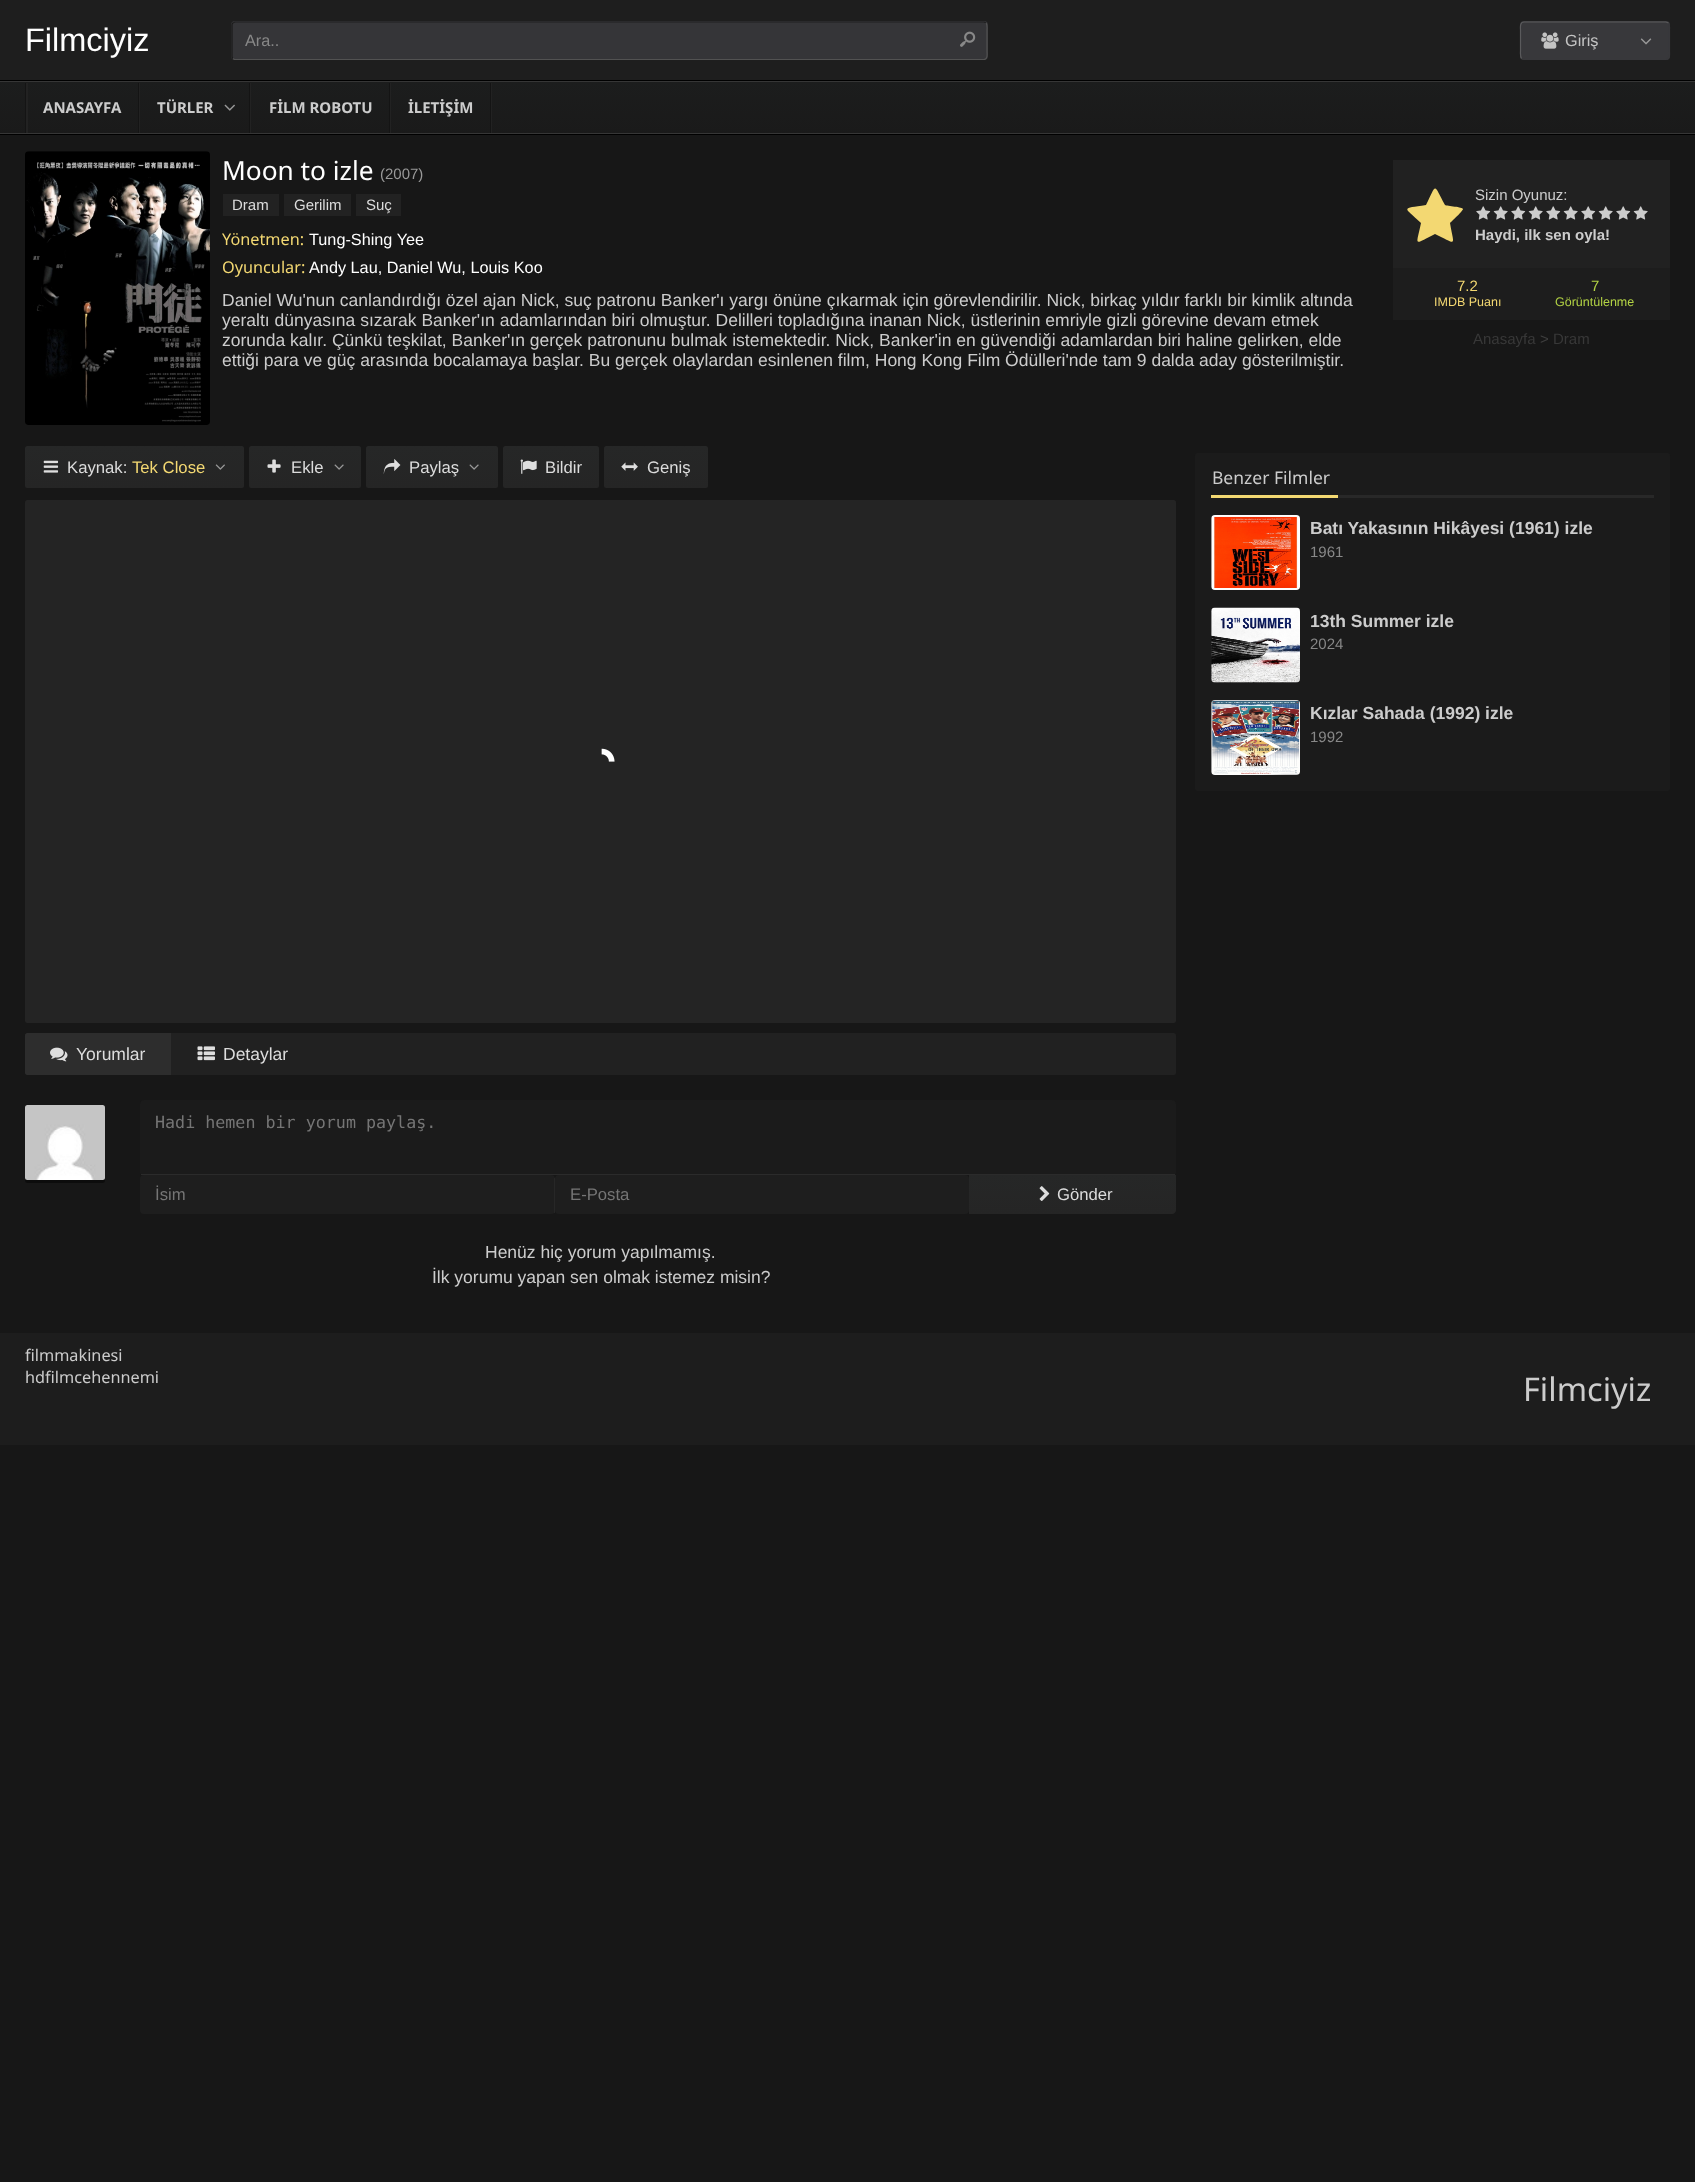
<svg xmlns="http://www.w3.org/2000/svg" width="1695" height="2182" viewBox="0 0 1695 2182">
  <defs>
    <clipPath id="clip1"><rect x="231" y="21" width="757" height="39"/></clipPath>
    <linearGradient id="g1" gradientUnits="userSpaceOnUse" x1="848" y1="81" x2="848" y2="134"><stop offset="0" stop-color="rgb(28,29,29)"/><stop offset="1" stop-color="rgb(26,26,26)"/></linearGradient>
    <linearGradient id="g2" gradientUnits="userSpaceOnUse" x1="134" y1="446" x2="134" y2="488"><stop offset="0" stop-color="rgb(38,39,39)"/><stop offset="1" stop-color="rgb(37,37,37)"/></linearGradient>
    <linearGradient id="g3" gradientUnits="userSpaceOnUse" x1="305" y1="446" x2="305" y2="488"><stop offset="0" stop-color="rgb(38,39,39)"/><stop offset="1" stop-color="rgb(37,37,37)"/></linearGradient>
    <linearGradient id="g4" gradientUnits="userSpaceOnUse" x1="432" y1="446" x2="432" y2="488"><stop offset="0" stop-color="rgb(38,39,39)"/><stop offset="1" stop-color="rgb(37,37,37)"/></linearGradient>
    <linearGradient id="g5" gradientUnits="userSpaceOnUse" x1="551" y1="446" x2="551" y2="488"><stop offset="0" stop-color="rgb(38,39,39)"/><stop offset="1" stop-color="rgb(37,37,37)"/></linearGradient>
    <linearGradient id="g6" gradientUnits="userSpaceOnUse" x1="656" y1="446" x2="656" y2="488"><stop offset="0" stop-color="rgb(38,39,39)"/><stop offset="1" stop-color="rgb(37,37,37)"/></linearGradient>
    <clipPath id="clip2"><path d="M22 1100H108V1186H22ZM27.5 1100H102.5C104 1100 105 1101 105 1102.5V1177.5C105 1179 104 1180 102.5 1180H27.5C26 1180 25 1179 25 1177.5V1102.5C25 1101 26 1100 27.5 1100Z" clip-rule="evenodd"/></clipPath>
    <linearGradient id="g7" gradientUnits="userSpaceOnUse" x1="1073" y1="1175" x2="1073" y2="1214"><stop offset="0" stop-color="rgb(38,39,39)"/><stop offset="1" stop-color="rgb(37,37,37)"/></linearGradient>
  </defs>
  <rect width="100%" height="100%" fill="rgb(23,23,23)"/>
  <rect x="0" y="0" width="1695" height="80" fill="rgb(30,30,30)"/>
  <text x="25" y="51" font-family="Liberation Sans" font-size="32.5" fill="rgb(255,255,255)">Filmciyiz</text>
  <rect x="231" y="21" width="757" height="39" rx="4" fill="rgb(53,53,56)"/>
  <path d="M233 23L235 22H984L986 23" fill="none" stroke="rgb(32,32,32)" stroke-width="1.2"/>
  <g clip-path="url(#clip1)">
    <path d="M986 23C987.5 24.5 987 28.5 987 30V51C987 53.5 988 59.5 984 59.5H234.5L233 58.5" fill="none" stroke="rgb(82,82,82)" stroke-width="1.2"/>
  </g>
  <path d="M233 58.5C232 58 232 57 232 56V25C232 24 232 23.5 233 23" fill="none" stroke="rgb(26,26,26)" stroke-width="1.2"/>
  <text x="245" y="46" font-family="Liberation Sans" font-size="16.25" fill="rgb(136,136,136)">Ara..</text>
  <image x="960" y="31" width="16" height="16" href="pic1.png"/>
  <rect x="1520" y="21" width="150" height="39" rx="4" fill="rgb(56,56,59)"/>
  <path d="M1668.5 23C1670 24.5 1669.5 28.5 1669.5 30V51C1669.5 53.5 1670.5 59.5 1666 59.5H1524L1521.5 58.5" fill="none" stroke="rgb(56,56,59)" stroke-width="1.2"/>
  <path d="M1521.5 58.5C1520 56.5 1520.5 52.5 1520.5 51V30C1520.5 28 1519.5 22 1524 22H1666L1668.5 23" fill="none" stroke="rgb(90,90,92)" stroke-width="1.2"/>
  <image x="1541" y="32" width="18" height="17" href="pic2.png"/>
  <text x="1565" y="46" font-family="Liberation Sans" font-size="16.25" fill="rgb(196,196,196)">Giriş</text>
  <image x="1640" y="38" width="12" height="7" href="pic3.png"/>
  <rect x="0" y="82" width="1695" height="51" fill="url(#g1)"/>
  <rect x="0" y="80" width="1695" height="1" fill="rgb(0,0,0)"/>
  <rect x="0" y="134" width="1695" height="1" fill="rgb(0,0,0)"/>
  <rect x="0" y="81" width="1695" height="1" fill="rgb(54,54,54)"/>
  <rect x="0" y="133" width="1695" height="1" fill="rgb(54,54,54)"/>
  <rect x="26" y="83" width="2" height="50" fill="rgb(34,34,34)"/>
  <rect x="25" y="83" width="1" height="50" fill="rgb(20,20,20)"/>
  <text x="43" y="113" font-family="Noto Sans" font-size="15" font-weight="bold" fill="rgb(204,204,204)">ANASAYFA</text>
  <rect x="139" y="83" width="1" height="50" fill="rgb(34,34,34)"/>
  <rect x="138" y="83" width="1" height="50" fill="rgb(20,20,20)"/>
  <text x="157" y="113" font-family="Noto Sans" font-size="15" font-weight="bold" fill="rgb(204,204,204)">TÜRLER</text>
  <rect x="250" y="83" width="1" height="50" fill="rgb(34,34,34)"/>
  <rect x="249" y="83" width="1" height="50" fill="rgb(20,20,20)"/>
  <image x="224" y="104" width="11" height="7" href="pic4.png"/>
  <text x="269" y="113" font-family="Noto Sans" font-size="15" font-weight="bold" fill="rgb(204,204,204)">FİLM ROBOTU</text>
  <rect x="390" y="83" width="1" height="50" fill="rgb(34,34,34)"/>
  <rect x="389" y="83" width="1" height="50" fill="rgb(20,20,20)"/>
  <text x="408" y="113" font-family="Noto Sans" font-size="15" font-weight="bold" fill="rgb(204,204,204)">İLETİŞİM</text>
  <rect x="491" y="83" width="1" height="50" fill="rgb(34,34,34)"/>
  <rect x="490" y="83" width="1" height="50" fill="rgb(20,20,20)"/>
  <image x="25" y="151" width="185" height="274" href="pic5.png"/>
  <text x="222" y="180" font-family="Noto Sans" font-size="26.25" fill="rgb(255,255,255)">Moon to izle</text>
  <text x="380" y="179" font-family="Liberation Sans" font-size="15" fill="rgb(153,153,153)">(2007)</text>
  <rect x="223" y="194" width="56" height="22" fill="rgb(34,34,34)"/>
  <text x="232" y="210" font-family="Liberation Sans" font-size="15" fill="rgb(220,220,220)">Dram</text>
  <rect x="284" y="194" width="67" height="22" fill="rgb(34,34,34)"/>
  <text x="294" y="210" font-family="Liberation Sans" font-size="15" fill="rgb(220,220,220)">Gerilim</text>
  <rect x="356" y="194" width="45" height="22" fill="rgb(34,34,34)"/>
  <text x="366" y="210" font-family="Liberation Sans" font-size="15" fill="rgb(220,220,220)">Suç</text>
  <text x="222" y="245" font-family="Noto Sans" font-size="16.25" fill="rgb(243,216,114)">Yönetmen:</text>
  <text x="309" y="245" font-family="Liberation Sans" font-size="16.25" fill="rgb(255,255,255)">Tung-Shing Yee</text>
  <text x="222" y="273" font-family="Noto Sans" font-size="16.25" fill="rgb(243,216,114)">Oyuncular:</text>
  <text x="309" y="273" font-family="Liberation Sans" font-size="16.25" fill="rgb(255,255,255)">Andy Lau, Daniel Wu, Louis Koo</text>
  <g font-family="Liberation Sans" font-size="17.5" fill="rgb(204,204,204)">
    <text>
      <tspan x="222" y="306">Daniel Wu'nun canlandırdığı özel ajan Nick, suç patronu Banker'ı yargı önüne çıkarmak için görevlendirilir. Nick, birkaç yıldır farklı bir kimlik altında</tspan>
      <tspan x="222" y="326">yeraltı dünyasına sızarak Banker'ın adamlarından biri olmuştur. Delilleri topladığına inanan Nick, üstlerinin emriyle gizli görevine devam etmek</tspan>
      <tspan x="222" y="346">zorunda kalır. Çünkü teşkilat, Banker'ın gerçek patronunu bulmak istemektedir. Nick, Banker'in en güvendiği adamlardan biri haline gelirken, elde</tspan>
      <tspan x="222" y="366">ettiği para ve güç arasında bocalamaya başlar. Bu gerçek olaylardan esinlenen film, Hong Kong Film Ödülleri'nde tam 9 dalda aday gösterilmiştir.</tspan>
    </text>
  </g>
  <rect x="1393" y="160" width="277" height="108" fill="rgb(33,33,33)"/>
  <path d="M1463 209C1463 211 1452 221 1450 223C1454 247 1458 245 1435 234C1413 245 1416 247 1421 223C1403 206 1401 209 1426 205C1437 183 1433 183 1445 205C1447 206 1463 207 1463 209Z" fill="rgb(243,216,114)"/>
  <text x="1475" y="200" font-family="Liberation Sans" font-size="15" fill="rgb(204,204,204)">Sizin Oyunuz:</text>
  <image x="1476" y="206" width="15" height="14" href="pic6.png"/>
  <image x="1493" y="206" width="15" height="14" href="pic7.png"/>
  <image x="1511" y="206" width="15" height="14" href="pic6.png"/>
  <image x="1528" y="206" width="15" height="14" href="pic7.png"/>
  <image x="1546" y="206" width="15" height="14" href="pic6.png"/>
  <image x="1563" y="206" width="15" height="14" href="pic7.png"/>
  <image x="1581" y="206" width="15" height="14" href="pic6.png"/>
  <image x="1598" y="206" width="15" height="14" href="pic7.png"/>
  <image x="1616" y="206" width="15" height="14" href="pic6.png"/>
  <image x="1633" y="206" width="15" height="14" href="pic7.png"/>
  <text x="1475" y="240" font-family="Liberation Sans" font-size="15" font-weight="bold" fill="rgb(204,204,204)">Haydi, ilk sen oyla!</text>
  <rect x="1393" y="268" width="277" height="52" fill="rgb(29,29,29)"/>
  <text x="1457" y="291" font-family="Liberation Sans" font-size="15" fill="rgb(243,216,114)">7.2</text>
  <text x="1434" y="306" font-family="Liberation Sans" font-size="12.5" fill="rgb(243,216,114)">IMDB Puanı</text>
  <text x="1591" y="291" font-family="Liberation Sans" font-size="15" fill="rgb(178,210,68)">7</text>
  <text x="1555" y="306" font-family="Liberation Sans" font-size="12.5" fill="rgb(178,210,68)">Görüntülenme</text>
  <text x="1473" y="344" font-family="Liberation Sans" font-size="15" fill="rgb(56,56,56)">Anasayfa</text>
  <text x="1540" y="344" font-family="Liberation Sans" font-size="15" fill="rgb(62,62,62)">&gt;</text>
  <text x="1553" y="344" font-family="Liberation Sans" font-size="15" fill="rgb(56,56,56)">Dram</text>
  <rect x="25" y="446" width="219" height="42" rx="2.5" fill="url(#g2)"/>
  <image x="43" y="460" width="16" height="13" href="pic8.png"/>
  <text x="67" y="473" font-family="Liberation Sans" font-size="16.7" fill="rgb(220,220,220)">Kaynak:</text>
  <text x="132" y="473" font-family="Liberation Sans" font-size="16.7" fill="rgb(243,216,114)">Tek Close</text>
  <image x="215" y="464" width="10" height="6" href="pic9.png"/>
  <rect x="249" y="446" width="112" height="42" rx="2.5" fill="url(#g3)"/>
  <image x="267" y="459" width="14" height="14" href="pic10.png"/>
  <text x="291" y="473" font-family="Liberation Sans" font-size="16.7" fill="rgb(220,220,220)">Ekle</text>
  <image x="334" y="464" width="10" height="6" href="pic11.png"/>
  <rect x="366" y="446" width="132" height="42" rx="2.5" fill="url(#g4)"/>
  <image x="383" y="459" width="18" height="15" href="pic12.png"/>
  <text x="409" y="473" font-family="Liberation Sans" font-size="16.7" fill="rgb(220,220,220)">Paylaş</text>
  <image x="469" y="464" width="10" height="6" href="pic11.png"/>
  <rect x="503" y="446" width="96" height="42" rx="2.5" fill="url(#g5)"/>
  <image x="520" y="459" width="17" height="15" href="pic13.png"/>
  <text x="545" y="473" font-family="Liberation Sans" font-size="16.7" fill="rgb(220,220,220)">Bildir</text>
  <rect x="604" y="446" width="104" height="42" rx="2.5" fill="url(#g6)"/>
  <image x="621" y="462" width="17" height="9" href="pic14.png"/>
  <text x="647" y="473" font-family="Liberation Sans" font-size="16.7" fill="rgb(220,220,220)">Geniş</text>
  <rect x="25" y="500" width="1151" height="523" rx="2.5" fill="rgb(36,36,36)"/>
  <image x="601" y="748" width="14" height="14" href="pic15.png"/>
  <rect x="25" y="1033" width="1151" height="42" rx="2.5" fill="rgb(33,33,33)"/>
  <path d="M27.5 1033H171V1075H27.5C26 1075 25 1074 25 1072.5V1035.5C25 1034 26 1033 27.5 1033Z" fill="rgb(45,45,45)"/>
  <image x="50" y="1047" width="18" height="15" href="pic16.png"/>
  <text x="76" y="1060" font-family="Liberation Sans" font-size="17.5" fill="rgb(220,220,220)">Yorumlar</text>
  <image x="197" y="1046" width="18" height="15" href="pic17.png"/>
  <text x="223" y="1060" font-family="Liberation Sans" font-size="17.5" fill="rgb(220,220,220)">Detaylar</text>
  <g clip-path="url(#clip2)">
    <rect x="25" y="1103" width="80" height="80" rx="2.5" fill="rgba(0,0,0,0.44)" filter="blur(0.5px)"/>
  </g>
  <image x="25" y="1105" width="80" height="75" href="pic18.png"/>
  <path d="M144 1100H1172C1174 1100 1176 1102 1176 1104V1172.5C1176 1174 1175 1175 1173.5 1175H142.5C141 1175 140 1174 140 1172.5V1104C140 1102 142 1100 144 1100Z" fill="rgb(27,27,27)"/>
  <rect x="141" y="1174" width="1034" height="1" fill="rgb(43,43,43)"/>
  <text x="155" y="1128" font-family="DejaVu Sans Mono" font-size="16.7" fill="rgb(117,117,117)">Hadi hemen bir yorum paylaş.</text>
  <rect x="140" y="1175" width="415" height="39" rx="4" fill="rgb(30,30,30)"/>
  <rect x="554" y="1178" width="1" height="35" fill="rgba(43,43,43,0.7)"/>
  <text x="155" y="1200" font-family="Liberation Sans" font-size="16.7" fill="rgb(117,117,117)">İsim</text>
  <rect x="555" y="1175" width="414" height="39" rx="4" fill="rgb(30,30,30)"/>
  <text x="570" y="1200" font-family="Liberation Sans" font-size="16.7" fill="rgb(117,117,117)">E-Posta</text>
  <path d="M969 1175H1176V1210C1176 1212 1174 1214 1172 1214H969Z" fill="url(#g7)"/>
  <image x="1039" y="1186" width="11" height="15" href="pic19.png"/>
  <text x="1057" y="1200" font-family="Liberation Sans" font-size="16.7" fill="rgb(220,220,220)">Gönder</text>
  <g font-family="Liberation Sans" font-size="17.5" fill="rgb(204,204,204)">
    <text x="485" y="1258">Henüz hiç yorum yapılmamış.</text>
    <text x="432" y="1283">İlk yorumu yapan sen olmak istemez misin?</text>
  </g>
  <rect x="1195" y="453" width="475" height="338" rx="2.5" fill="rgb(27,27,27)"/>
  <rect x="1338" y="495" width="316" height="3" fill="rgb(40,40,40)"/>
  <text x="1212" y="484" font-family="Noto Sans" font-size="17.5" fill="rgb(204,204,204)">Benzer Filmler</text>
  <rect x="1211" y="495" width="127" height="3" fill="rgb(243,216,114)"/>
  <rect x="1211" y="515" width="89" height="75" rx="4" fill="rgb(34,34,34)"/>
  <image x="1211" y="515" width="89" height="75" href="pic20.png"/>
  <text x="1310" y="534" font-family="Liberation Sans" font-size="17.5" font-weight="bold" fill="rgb(204,204,204)">Batı Yakasının Hikâyesi (1961) izle</text>
  <text x="1310" y="557" font-family="Liberation Sans" font-size="15" fill="rgb(136,136,136)">1961</text>
  <rect x="1211" y="608" width="89" height="75" rx="4" fill="rgb(34,34,34)"/>
  <image x="1211" y="607" width="89" height="76" href="pic21.png"/>
  <text x="1310" y="627" font-family="Liberation Sans" font-size="17.5" font-weight="bold" fill="rgb(204,204,204)">13th Summer izle</text>
  <text x="1310" y="649" font-family="Liberation Sans" font-size="15" fill="rgb(136,136,136)">2024</text>
  <rect x="1211" y="700" width="89" height="75" rx="4" fill="rgb(34,34,34)"/>
  <image x="1211" y="700" width="89" height="75" href="pic22.png"/>
  <text x="1310" y="719" font-family="Liberation Sans" font-size="17.5" font-weight="bold" fill="rgb(204,204,204)">Kızlar Sahada (1992) izle</text>
  <text x="1310" y="742" font-family="Liberation Sans" font-size="15" fill="rgb(136,136,136)">1992</text>
  <rect x="0" y="1333" width="1695" height="112" fill="rgb(29,29,29)"/>
  <g font-family="Noto Sans" font-size="16.25" fill="rgb(204,204,204)">
    <text>
      <tspan x="25" y="1361">filmmakinesi</tspan>
      <tspan x="25" y="1383">hdfilmcehennemi</tspan>
    </text>
  </g>
  <text x="1523" y="1401" font-family="Noto Sans" font-size="32.5" fill="rgb(204,204,204)">Filmciyiz</text>
</svg>
